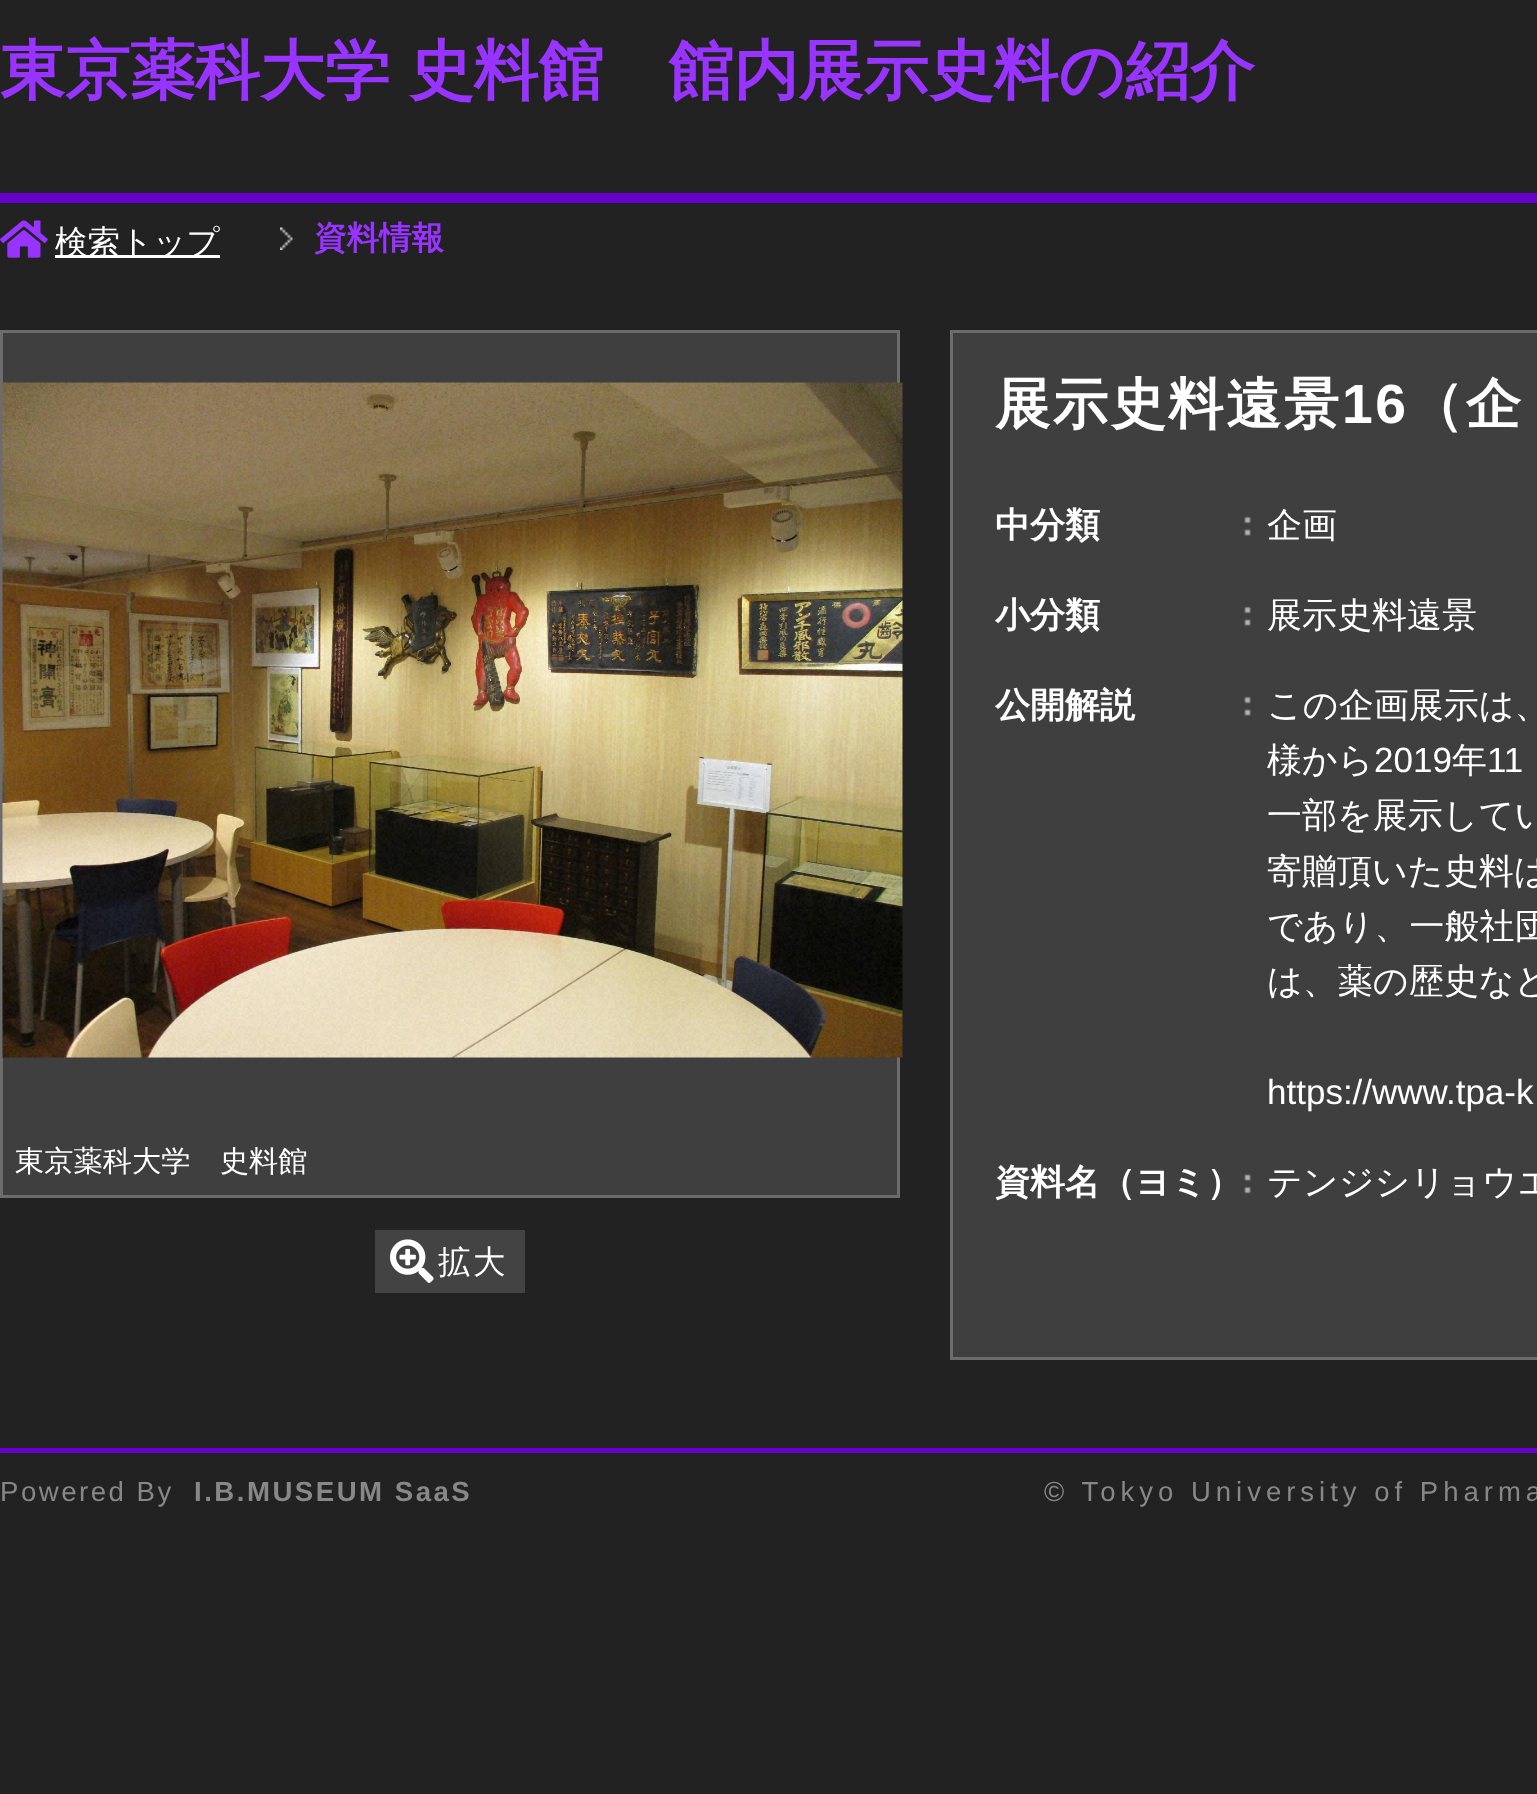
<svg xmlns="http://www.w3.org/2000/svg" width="1537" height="1794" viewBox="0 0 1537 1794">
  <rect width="100%" height="100%" fill="rgb(34,34,34)"/>
  <text x="0" y="93" word-spacing="-1" font-family="WenQuanYi Zen Hei" font-size="65" font-weight="bold" fill="rgb(153,51,255)">東京薬科大学 史料館　館内展示史料の紹介</text>
  <rect x="0" y="193" width="1537" height="10" fill="rgb(102,0,204)"/>
  <image x="0" y="220" width="48" height="38" href="pic1.png"/>
  <rect x="55" y="255" width="165" height="3" fill="rgb(255,255,255)"/>
  <text x="55" y="253" font-family="WenQuanYi Zen Hei" font-size="32.5" font-weight="500" fill="rgb(255,255,255)">検索トップ</text>
  <image x="280" y="227" width="13" height="23" href="pic2.png"/>
  <text x="314" y="249" font-family="WenQuanYi Zen Hei" font-size="32.5" font-weight="bold" fill="rgb(153,51,255)">資料情報</text>
  <rect x="1.5" y="331.5" width="897" height="865" fill="rgb(63,63,63)" stroke="rgb(108,108,108)" stroke-width="3"/>
  <image x="2" y="382" width="901" height="676" href="pic3.png"/>
  <text x="15" y="1171" font-family="WenQuanYi Zen Hei" font-size="29.25" font-weight="500" fill="rgb(255,255,255)">東京薬科大学　史料館</text>
  <rect x="375" y="1230" width="150" height="63" fill="rgb(67,67,67)"/>
  <image x="390" y="1239" width="44" height="44" href="pic4.png"/>
  <text x="438" y="1273" font-family="WenQuanYi Zen Hei" font-size="32.5" font-weight="500" letter-spacing="2.5" fill="rgb(255,255,255)">拡大</text>
  <rect x="951.5" y="331.5" width="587" height="1027" fill="rgb(63,63,63)" stroke="rgb(108,108,108)" stroke-width="3"/>
  <text x="995" y="423" font-family="WenQuanYi Zen Hei" font-size="55.25" font-weight="bold" letter-spacing="2.5" fill="rgb(255,255,255)">展示史料遠景</text>
  <text x="1342" y="423" font-family="Liberation Sans" font-size="55.25" font-weight="bold" letter-spacing="2.5" fill="rgb(255,255,255)">16</text>
  <text x="1408" y="423" font-family="WenQuanYi Zen Hei" font-size="55.25" font-weight="bold" letter-spacing="2.5" fill="rgb(255,255,255)">（企</text>
  <text x="995" y="537" font-family="WenQuanYi Zen Hei" font-size="35" font-weight="bold" fill="rgb(255,255,255)">中分類</text>
  <image x="1244" y="516" width="7" height="20" href="pic5.png"/>
  <text x="1267" y="537" font-family="WenQuanYi Zen Hei" font-size="35" font-weight="500" fill="rgb(255,255,255)">企画</text>
  <text x="995" y="627" font-family="WenQuanYi Zen Hei" font-size="35" font-weight="bold" fill="rgb(255,255,255)">小分類</text>
  <image x="1244" y="606" width="7" height="20" href="pic5.png"/>
  <text x="1267" y="627" font-family="WenQuanYi Zen Hei" font-size="35" font-weight="500" fill="rgb(255,255,255)">展示史料遠景</text>
  <text x="995" y="717" font-family="WenQuanYi Zen Hei" font-size="35" font-weight="bold" fill="rgb(255,255,255)">公開解説</text>
  <image x="1244" y="696" width="7" height="20" href="pic5.png"/>
  <g font-family="WenQuanYi Zen Hei" font-size="35" font-weight="500" fill="rgb(255,255,255)">
    <text>
      <tspan x="1267" y="717" word-spacing="-1">この企画展示は、</tspan>
      <tspan x="1267" y="772">様から</tspan>
    </text>
  </g>
  <text x="1374" y="772" font-family="Liberation Sans" font-size="35" fill="rgb(255,255,255)">2019</text>
  <text x="1452" y="772" font-family="WenQuanYi Zen Hei" font-size="35" font-weight="500" fill="rgb(255,255,255)">年</text>
  <text x="1487" y="772" font-family="Liberation Sans" font-size="35" fill="rgb(255,255,255)">11</text>
  <g font-family="WenQuanYi Zen Hei" font-size="35" font-weight="500" fill="rgb(255,255,255)">
    <text>
      <tspan x="1267" y="827">一部を展示してい</tspan>
      <tspan x="1267" y="883">寄贈頂いた史料は</tspan>
      <tspan x="1267" y="938" word-spacing="-1">であり、一般社団</tspan>
      <tspan x="1267" y="993">は、薬の歴史など</tspan>
    </text>
  </g>
  <text x="1267" y="1104" font-family="Liberation Sans" font-size="35" fill="rgb(255,255,255)">https://www.tpa-k</text>
  <text x="995" y="1194" font-family="WenQuanYi Zen Hei" font-size="35" font-weight="bold" fill="rgb(255,255,255)">資料名（ヨミ）</text>
  <image x="1244" y="1174" width="7" height="20" href="pic6.png"/>
  <text x="1267" y="1194" font-family="WenQuanYi Zen Hei" font-size="35" font-weight="500" fill="rgb(255,255,255)">テンジシリョウエ</text>
  <rect x="0" y="1448" width="1537" height="5" fill="rgb(102,0,204)"/>
  <text x="0" y="1501" font-family="Liberation Sans" font-size="27.6" letter-spacing="2.5" fill="rgb(136,136,136)">Powered By</text>
  <text x="194" y="1501" font-family="Liberation Sans" font-size="27.6" font-weight="bold" letter-spacing="2.5" fill="rgb(136,136,136)">I.B.MUSEUM SaaS</text>
  <text x="1044" y="1501" font-family="Liberation Sans" font-size="27.5" letter-spacing="5" fill="rgb(136,136,136)">© Tokyo University of Pharma</text>
</svg>
